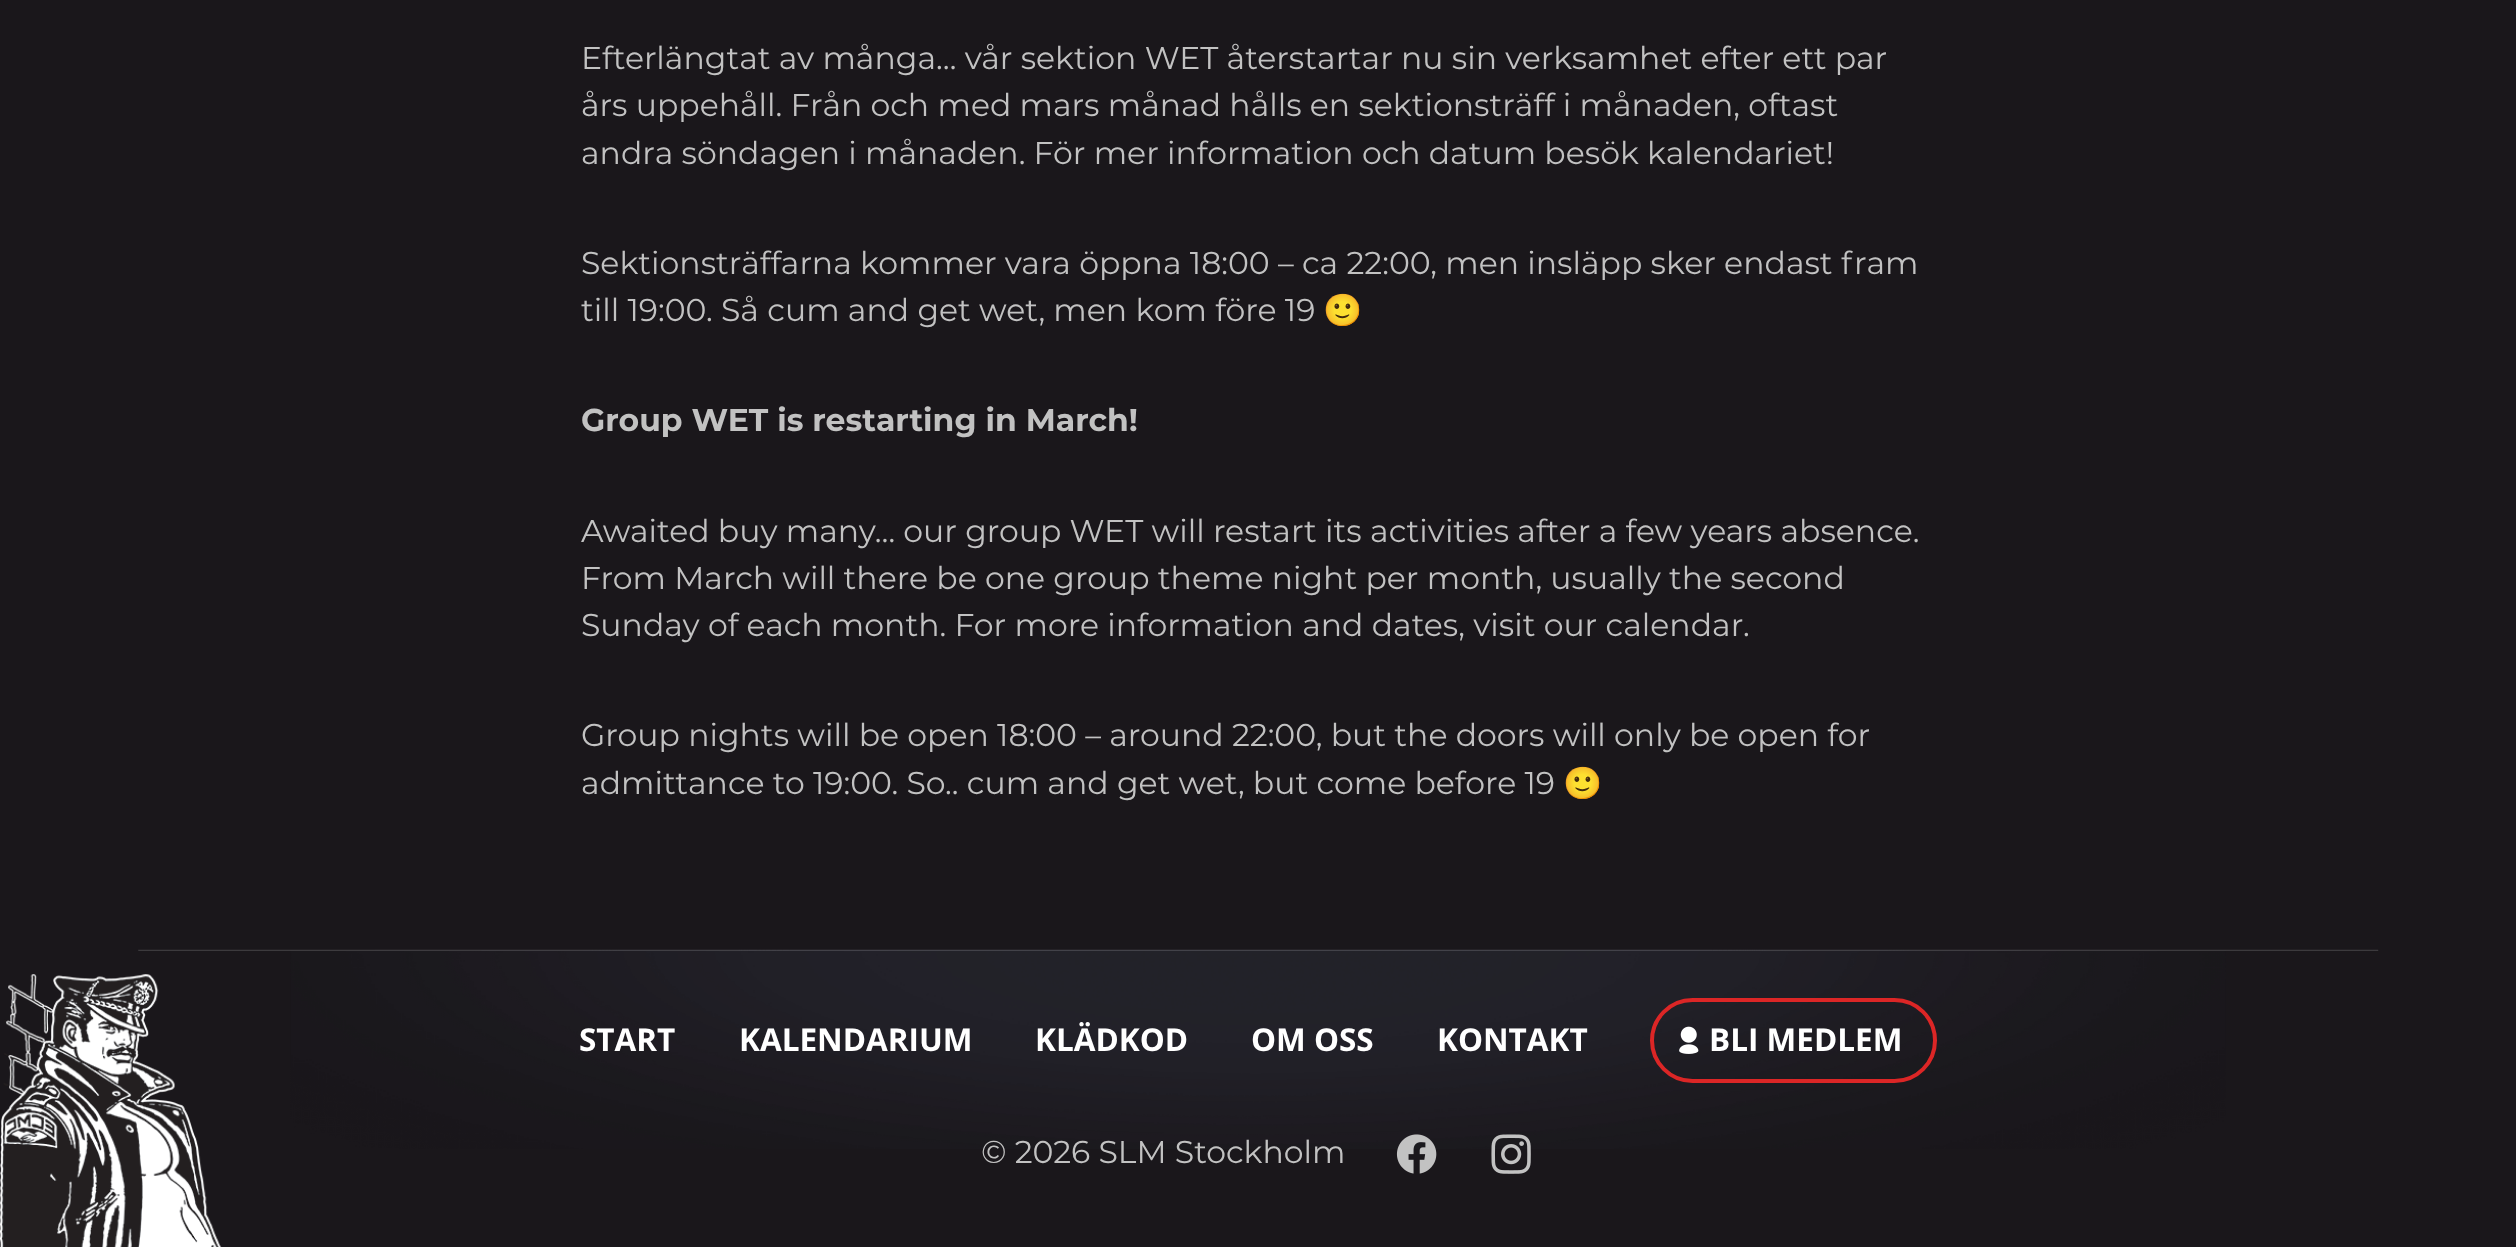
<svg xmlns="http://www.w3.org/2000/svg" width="2516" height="1247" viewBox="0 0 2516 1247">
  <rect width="100%" height="100%" fill="rgb(26,23,27)"/>
  <g font-family="Montserrat" font-size="31.5" fill="rgb(194,194,194)">
    <text>
      <tspan x="581" y="69">Efterlängtat av många… vår sektion WET återstartar nu sin verksamhet efter ett par</tspan>
      <tspan x="581" y="116">års uppehåll. Från och med mars månad hålls en sektionsträff i månaden, oftast</tspan>
      <tspan x="581" y="164">andra söndagen i månaden. För mer information och datum besök kalendariet!</tspan>
    </text>
    <text>
      <tspan x="581" y="274">Sektionsträffarna kommer vara öppna 18:00 – ca 22:00, men insläpp sker endast fram</tspan>
      <tspan x="581" y="321">till 19:00. Så cum and get wet, men kom före 19</tspan>
    </text>
  </g>
  <text x="1323" y="321" font-family="Noto Color Emoji" font-size="31.5" fill="rgb(194,194,194)">🙂</text>
  <text x="581" y="431" font-family="Montserrat" font-size="31.5" font-weight="bold" fill="rgb(194,194,194)">Group WET is restarting in March!</text>
  <g font-family="Montserrat" font-size="31.5" fill="rgb(194,194,194)">
    <text>
      <tspan x="581" y="542">Awaited buy many… our group WET will restart its activities after a few years absence.</tspan>
      <tspan x="581" y="589">From March will there be one group theme night per month, usually the second</tspan>
      <tspan x="581" y="636">Sunday of each month. For more information and dates, visit our calendar.</tspan>
    </text>
    <text>
      <tspan x="581" y="746">Group nights will be open 18:00 – around 22:00, but the doors will only be open for</tspan>
      <tspan x="581" y="794">admittance to 19:00. So.. cum and get wet, but come before 19</tspan>
    </text>
  </g>
  <text x="1563" y="794" font-family="Noto Color Emoji" font-size="31.5" fill="rgb(194,194,194)">🙂</text>
  <image x="138" y="949" width="2241" height="200" href="pic2.png"/>
  <image x="0" y="974" width="222" height="273" href="pic1.png"/>
  <g font-family="Open Sans" font-size="31.5" font-weight="bold" fill="rgb(255,255,255)">
    <text x="579" y="1051">START</text>
    <text x="739" y="1051">KALENDARIUM</text>
    <text x="1035" y="1051">KLÄDKOD</text>
    <text x="1251" y="1051">OM OSS</text>
    <text x="1437" y="1051">KONTAKT</text>
  </g>
  <rect x="1652" y="1000" width="283" height="81" rx="40.5" fill="none" stroke="rgb(220,38,38)" stroke-width="4"/>
  <image x="1679" y="1026" width="20" height="28" href="pic3.png"/>
  <text x="1709" y="1051" font-family="Open Sans" font-size="31.5" font-weight="bold" fill="rgb(255,255,255)">BLI MEDLEM</text>
  <text x="981" y="1163" font-family="Montserrat" font-size="31.5" fill="rgb(194,194,194)">© 2026 SLM Stockholm</text>
  <image x="1396" y="1134" width="41" height="40" href="pic4.png"/>
  <image x="1491" y="1134" width="40" height="40" href="pic5.png"/>
</svg>
